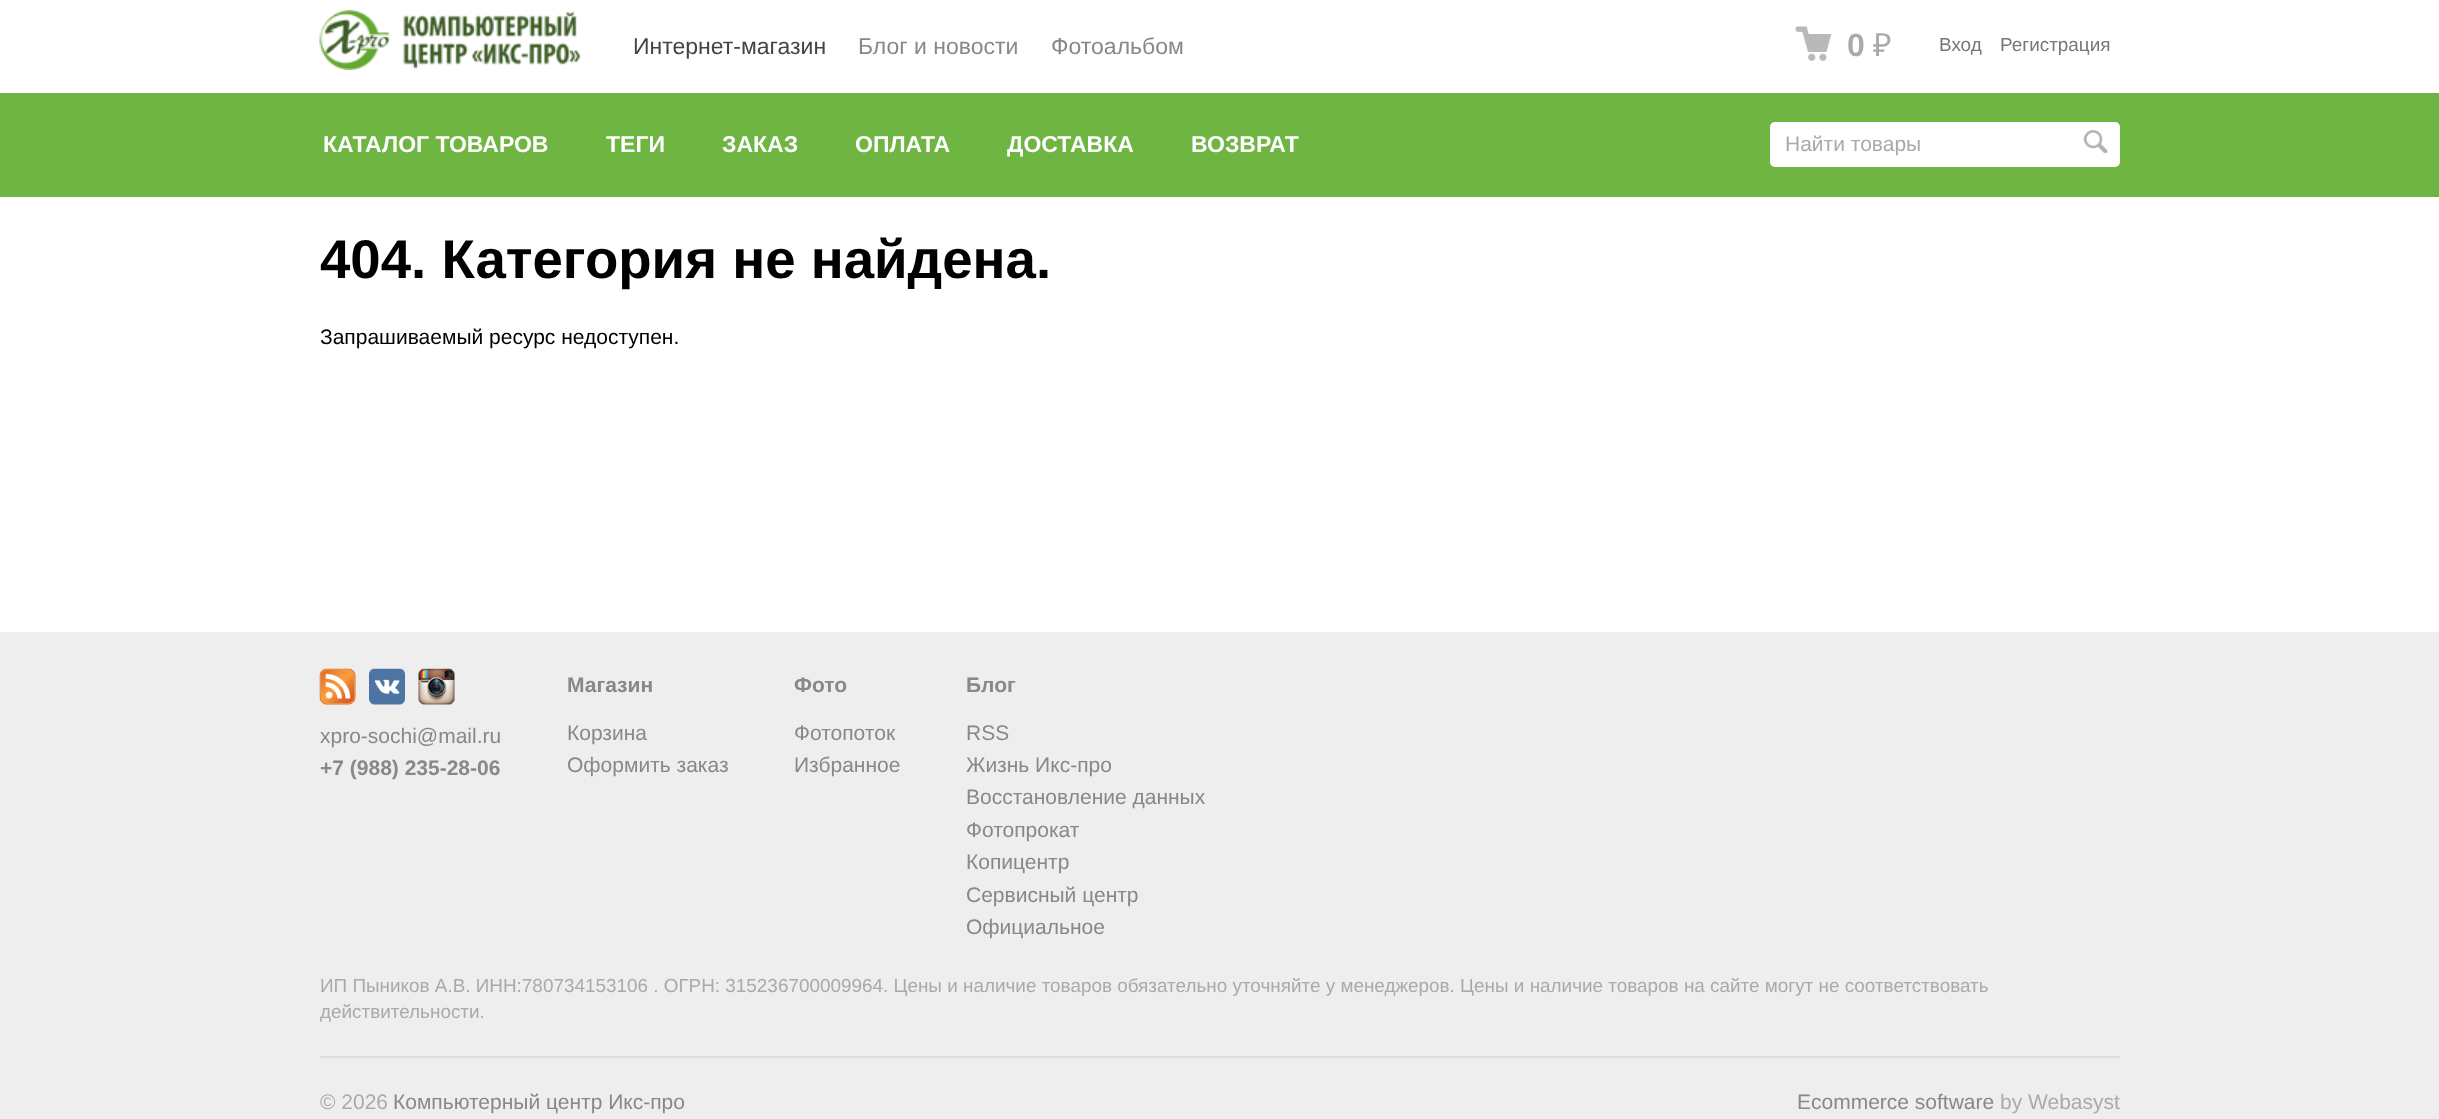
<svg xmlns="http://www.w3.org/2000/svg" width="2439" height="1119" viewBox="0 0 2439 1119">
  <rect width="100%" height="100%" fill="rgb(238,238,238)"/>
  <rect x="0" y="93" width="2439" height="104" fill="rgb(111,181,65)"/>
  <rect x="0" y="0" width="2439" height="93" fill="rgb(255,255,255)"/>
  <image x="319" y="10" width="262" height="60" href="pic1.png"/>
  <text x="633" y="54" font-family="Liberation Sans" font-size="23" fill="rgb(68,68,68)">Интернет-магазин</text>
  <g font-family="Liberation Sans" font-size="23" fill="rgb(136,136,136)">
    <text x="858" y="54">Блог и новости</text>
    <text x="1051" y="54">Фотоальбом</text>
  </g>
  <image x="1795" y="26" width="37" height="35" href="pic2.png"/>
  <text x="1847" y="56" font-family="Liberation Sans" font-size="32" font-weight="bold" fill="rgb(170,170,170)">0</text>
  <text x="1873" y="56" font-family="Noto Sans" font-size="32" fill="rgb(170,170,170)">₽</text>
  <g font-family="Liberation Sans" font-size="18.9" fill="rgb(119,119,119)">
    <text x="1939" y="51">Вход</text>
    <text x="2000" y="51">Регистрация</text>
  </g>
  <g font-family="Liberation Sans" font-size="23" font-weight="bold" fill="rgb(255,255,255)">
    <text x="323" y="152">КАТАЛОГ ТОВАРОВ</text>
    <text x="606" y="152">ТЕГИ</text>
    <text x="722" y="152">ЗАКАЗ</text>
    <text x="855" y="152">ОПЛАТА</text>
    <text x="1007" y="152">ДОСТАВКА</text>
    <text x="1191" y="152">ВОЗВРАТ</text>
  </g>
  <rect x="1770" y="122" width="350" height="45" rx="5" fill="rgb(255,255,255)"/>
  <text x="1785" y="151" font-family="Liberation Sans" font-size="21" fill="rgb(170,170,170)">Найти товары</text>
  <image x="2083" y="130" width="25" height="24" href="pic3.png"/>
  <rect x="0" y="197" width="2439" height="435" fill="rgb(255,255,255)"/>
  <text x="320" y="278" font-family="Liberation Sans" font-size="54.6" font-weight="bold" fill="rgb(0,0,0)">404. Категория не найдена.</text>
  <text x="320" y="344" font-family="Liberation Sans" font-size="21" fill="rgb(0,0,0)">Запрашиваемый ресурс недоступен.</text>
  <image x="319" y="668" width="37" height="37" href="pic4.png"/>
  <image x="369" y="668" width="36" height="37" href="pic5.png"/>
  <image x="418" y="668" width="37" height="37" href="pic6.png"/>
  <text x="320" y="743" font-family="Liberation Sans" font-size="21" fill="rgb(136,136,136)">xpro-sochi@mail.ru</text>
  <g font-family="Liberation Sans" font-size="21" font-weight="bold" fill="rgb(136,136,136)">
    <text x="320" y="775">+7 (988) 235-28-06</text>
    <text x="567" y="692">Магазин</text>
  </g>
  <g font-family="Liberation Sans" font-size="21" fill="rgb(136,136,136)">
    <text>
      <tspan x="567" y="740">Корзина</tspan>
      <tspan x="567" y="772">Оформить заказ</tspan>
    </text>
  </g>
  <text x="794" y="692" font-family="Liberation Sans" font-size="21" font-weight="bold" fill="rgb(136,136,136)">Фото</text>
  <g font-family="Liberation Sans" font-size="21" fill="rgb(136,136,136)">
    <text>
      <tspan x="794" y="740">Фотопоток</tspan>
      <tspan x="794" y="772">Избранное</tspan>
    </text>
  </g>
  <text x="966" y="692" font-family="Liberation Sans" font-size="21" font-weight="bold" fill="rgb(136,136,136)">Блог</text>
  <g font-family="Liberation Sans" font-size="21" fill="rgb(136,136,136)">
    <text>
      <tspan x="966" y="740">RSS</tspan>
      <tspan x="966" y="772">Жизнь Икс-про</tspan>
      <tspan x="966" y="804">Восстановление данных</tspan>
      <tspan x="966" y="837">Фотопрокат</tspan>
      <tspan x="966" y="869">Копицентр</tspan>
      <tspan x="966" y="902">Сервисный центр</tspan>
      <tspan x="966" y="934">Официальное</tspan>
    </text>
  </g>
  <g font-family="Liberation Sans" font-size="18.9" fill="rgb(170,170,170)">
    <text>
      <tspan x="320" y="992">ИП Пыников А.В. ИНН:780734153106 . ОГРН: 315236700009964. Цены и наличие товаров обязательно уточняйте у менеджеров. Цены и наличие товаров на сайте могут не соответствовать</tspan>
      <tspan x="320" y="1018">действительности.</tspan>
    </text>
  </g>
  <rect x="320" y="1056" width="1800" height="2" fill="rgb(221,221,221)"/>
  <text x="320" y="1109" font-family="Liberation Sans" font-size="21" fill="rgb(170,170,170)">© 2026</text>
  <g font-family="Liberation Sans" font-size="21" fill="rgb(136,136,136)">
    <text x="393" y="1109">Компьютерный центр Икс-про</text>
    <text x="1797" y="1109">Ecommerce software</text>
  </g>
  <text x="2000" y="1109" font-family="Liberation Sans" font-size="21" fill="rgb(170,170,170)">by Webasyst</text>
</svg>
